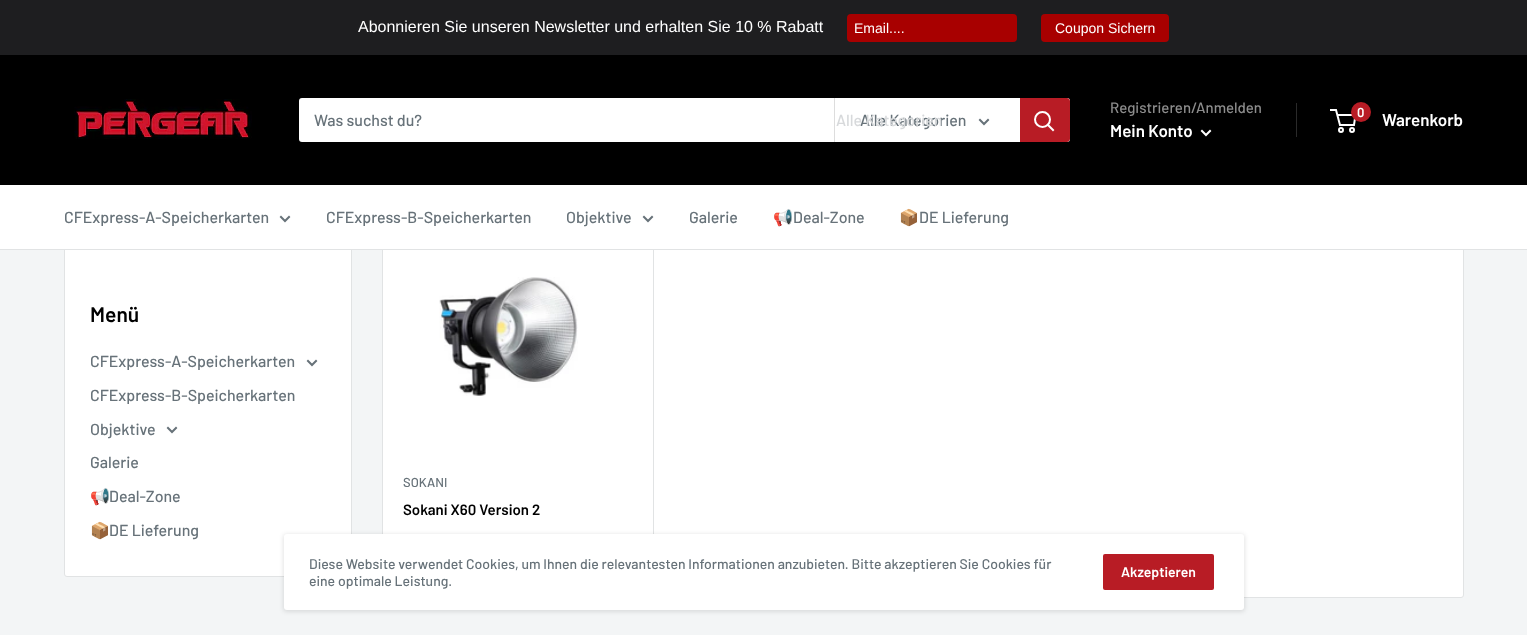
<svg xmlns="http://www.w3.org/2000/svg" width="1527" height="635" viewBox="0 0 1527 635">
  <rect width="100%" height="100%" fill="rgb(243,245,246)"/>
  <rect x="0" y="0" width="1527" height="55" fill="rgb(30,30,32)"/>
  <text x="358" y="32" font-family="Liberation Sans" font-size="16" fill="rgb(255,255,255)">Abonnieren Sie unseren Newsletter und erhalten Sie 10 % Rabatt</text>
  <rect x="847" y="14" width="170" height="28" rx="4" fill="rgb(168,0,0)"/>
  <text x="854" y="33" font-family="Liberation Sans" font-size="14" fill="rgb(255,255,255)">Email....</text>
  <rect x="1041" y="14" width="128" height="28" rx="4" fill="rgb(168,0,0)"/>
  <text x="1055" y="33" font-family="Liberation Sans" font-size="14" fill="rgb(255,255,255)">Coupon Sichern</text>
  <rect x="64.5" y="81.5" width="287" height="495" rx="2.5" fill="rgb(255,255,255)" stroke="rgb(225,227,228)"/>
  <rect x="382.5" y="81.5" width="1081" height="516" rx="2.5" fill="rgb(255,255,255)" stroke="rgb(225,227,228)"/>
  <rect x="0" y="55" width="1527" height="130" fill="rgb(0,0,0)"/>
  <image x="74" y="99" width="178" height="40" href="pic1.png"/>
  <rect x="299" y="98" width="771" height="44" rx="3" fill="rgb(255,255,255)"/>
  <text x="314" y="126" font-family="Barlow" font-size="16" font-weight="500" fill="rgb(103,114,121)">Was suchst du?</text>
  <rect x="834" y="98" width="1" height="44" fill="rgb(221,221,221)"/>
  <text x="860" y="126" font-family="Barlow" font-size="16" font-weight="500" fill="rgb(103,114,121)">Alle Kategorien</text>
  <text x="836" y="126" font-family="Barlow" font-size="16" font-weight="500" fill="rgb(215,217,219)">Alle Kategorien</text>
  <path d="M988 120L984 124L980 120" fill="none" stroke="rgb(103,114,121)" stroke-width="2" stroke-linecap="square"/>
  <path d="M1020 98H1067C1068.5 98 1070 99.5 1070 101V139C1070 140.5 1068.5 142 1067 142H1020Z" fill="rgb(184,28,37)"/>
  <path d="M1053 130L1048 125" fill="none" stroke="rgb(255,255,255)" stroke-width="2" stroke-linecap="square"/>
  <circle cx="1042.5" cy="119.5" r="7.5" fill="none" stroke="rgb(255,255,255)" stroke-width="2"/>
  <text x="1110" y="113" font-family="Barlow" font-size="15" font-weight="500" fill="rgb(141,141,141)">Registrieren/Anmelden</text>
  <rect x="1296" y="103" width="1" height="34" fill="rgb(42,42,42)"/>
  <text x="1110" y="137" font-family="Barlow" font-size="17" font-weight="600" fill="rgb(255,255,255)">Mein Konto</text>
  <path d="M1210 131L1206 135L1202 131" fill="none" stroke="rgb(255,255,255)" stroke-width="2" stroke-linecap="square"/>
  <circle cx="1341" cy="130" r="2" fill="none" stroke="rgb(255,255,255)" stroke-width="2"/>
  <circle cx="1352" cy="130" r="2" fill="none" stroke="rgb(255,255,255)" stroke-width="2"/>
  <path d="M1337.5 115H1355.5L1354 125H1340L1336 110H1330" fill="none" stroke="rgb(255,255,255)" stroke-width="2"/>
  <circle cx="1361" cy="112" r="10" fill="rgb(184,28,37)"/>
  <text x="1357" y="117" font-family="Barlow" font-size="13" font-weight="600" fill="rgb(255,255,255)">0</text>
  <text x="1382" y="126" font-family="Barlow" font-size="17" font-weight="600" fill="rgb(255,255,255)">Warenkorb</text>
  <rect x="0" y="185" width="1527" height="64" fill="rgb(255,255,255)"/>
  <rect x="0" y="249" width="1527" height="1" fill="rgb(225,227,228)"/>
  <text x="64" y="223" font-family="Barlow" font-size="16" font-weight="500" fill="rgb(103,114,121)">CFExpress-A-Speicherkarten</text>
  <path d="M289 217L285 221L281 217" fill="none" stroke="rgb(103,114,121)" stroke-width="2" stroke-linecap="square"/>
  <g font-family="Barlow" font-size="16" font-weight="500" fill="rgb(103,114,121)">
    <text x="326" y="223">CFExpress-B-Speicherkarten</text>
    <text x="566" y="223">Objektive</text>
  </g>
  <path d="M652 217L648 221L644 217" fill="none" stroke="rgb(103,114,121)" stroke-width="2" stroke-linecap="square"/>
  <text x="689" y="223" font-family="Barlow" font-size="16" font-weight="500" fill="rgb(103,114,121)">Galerie</text>
  <text x="773" y="223" font-family="Noto Color Emoji" font-size="16" fill="rgb(103,114,121)">📢</text>
  <text x="793" y="223" font-family="Barlow" font-size="16" font-weight="500" fill="rgb(103,114,121)">Deal-Zone</text>
  <text x="899" y="223" font-family="Noto Color Emoji" font-size="16" fill="rgb(103,114,121)">📦</text>
  <text x="919" y="223" font-family="Barlow" font-size="16" font-weight="500" fill="rgb(103,114,121)">DE Lieferung</text>
  <text x="90" y="322" font-family="Barlow" font-size="21" font-weight="600" fill="rgb(0,0,0)">Menü</text>
  <text x="90" y="367" font-family="Barlow" font-size="16" font-weight="500" fill="rgb(103,114,121)">CFExpress-A-Speicherkarten</text>
  <path d="M316 361L312 365L308 361" fill="none" stroke="rgb(103,114,121)" stroke-width="2" stroke-linecap="square"/>
  <g font-family="Barlow" font-size="16" font-weight="500" fill="rgb(103,114,121)">
    <text x="90" y="401">CFExpress-B-Speicherkarten</text>
    <text x="90" y="435">Objektive</text>
  </g>
  <path d="M176 428L172 432L168 428" fill="none" stroke="rgb(103,114,121)" stroke-width="2" stroke-linecap="square"/>
  <text x="90" y="468" font-family="Barlow" font-size="16" font-weight="500" fill="rgb(103,114,121)">Galerie</text>
  <text x="90" y="502" font-family="Noto Color Emoji" font-size="16" fill="rgb(103,114,121)">📢</text>
  <text x="109" y="502" font-family="Barlow" font-size="16" font-weight="500" fill="rgb(103,114,121)">Deal-Zone</text>
  <text x="90" y="536" font-family="Noto Color Emoji" font-size="16" fill="rgb(103,114,121)">📦</text>
  <text x="109" y="536" font-family="Barlow" font-size="16" font-weight="500" fill="rgb(103,114,121)">DE Lieferung</text>
  <image x="439" y="277" width="139" height="119" href="pic2.png"/>
  <rect x="653" y="250" width="1" height="284" fill="rgb(225,227,228)"/>
  <text x="403" y="487" font-family="Barlow" font-size="13" font-weight="500" fill="rgb(103,114,121)">SOKANI</text>
  <text x="403" y="515" font-family="Barlow" font-size="15" font-weight="600" fill="rgb(0,0,0)">Sokani X60 Version 2</text>
  <rect x="283" y="534" width="962" height="78" rx="4" fill="rgba(0,0,0,0.1)" filter="blur(2px)"/>
  <rect x="284" y="534" width="960" height="76" rx="3" fill="rgb(255,255,255)"/>
  <g font-family="Barlow" font-size="14" font-weight="500" fill="rgb(103,114,121)">
    <text>
      <tspan x="309" y="569">Diese Website verwendet Cookies, um Ihnen die relevantesten Informationen anzubieten. Bitte akzeptieren Sie Cookies für</tspan>
      <tspan x="309" y="586">eine optimale Leistung.</tspan>
    </text>
  </g>
  <rect x="1103" y="554" width="111" height="36" rx="2" fill="rgb(184,28,37)"/>
  <text x="1121" y="577" font-family="Barlow" font-size="14" font-weight="600" fill="rgb(255,255,255)">Akzeptieren</text>
</svg>
